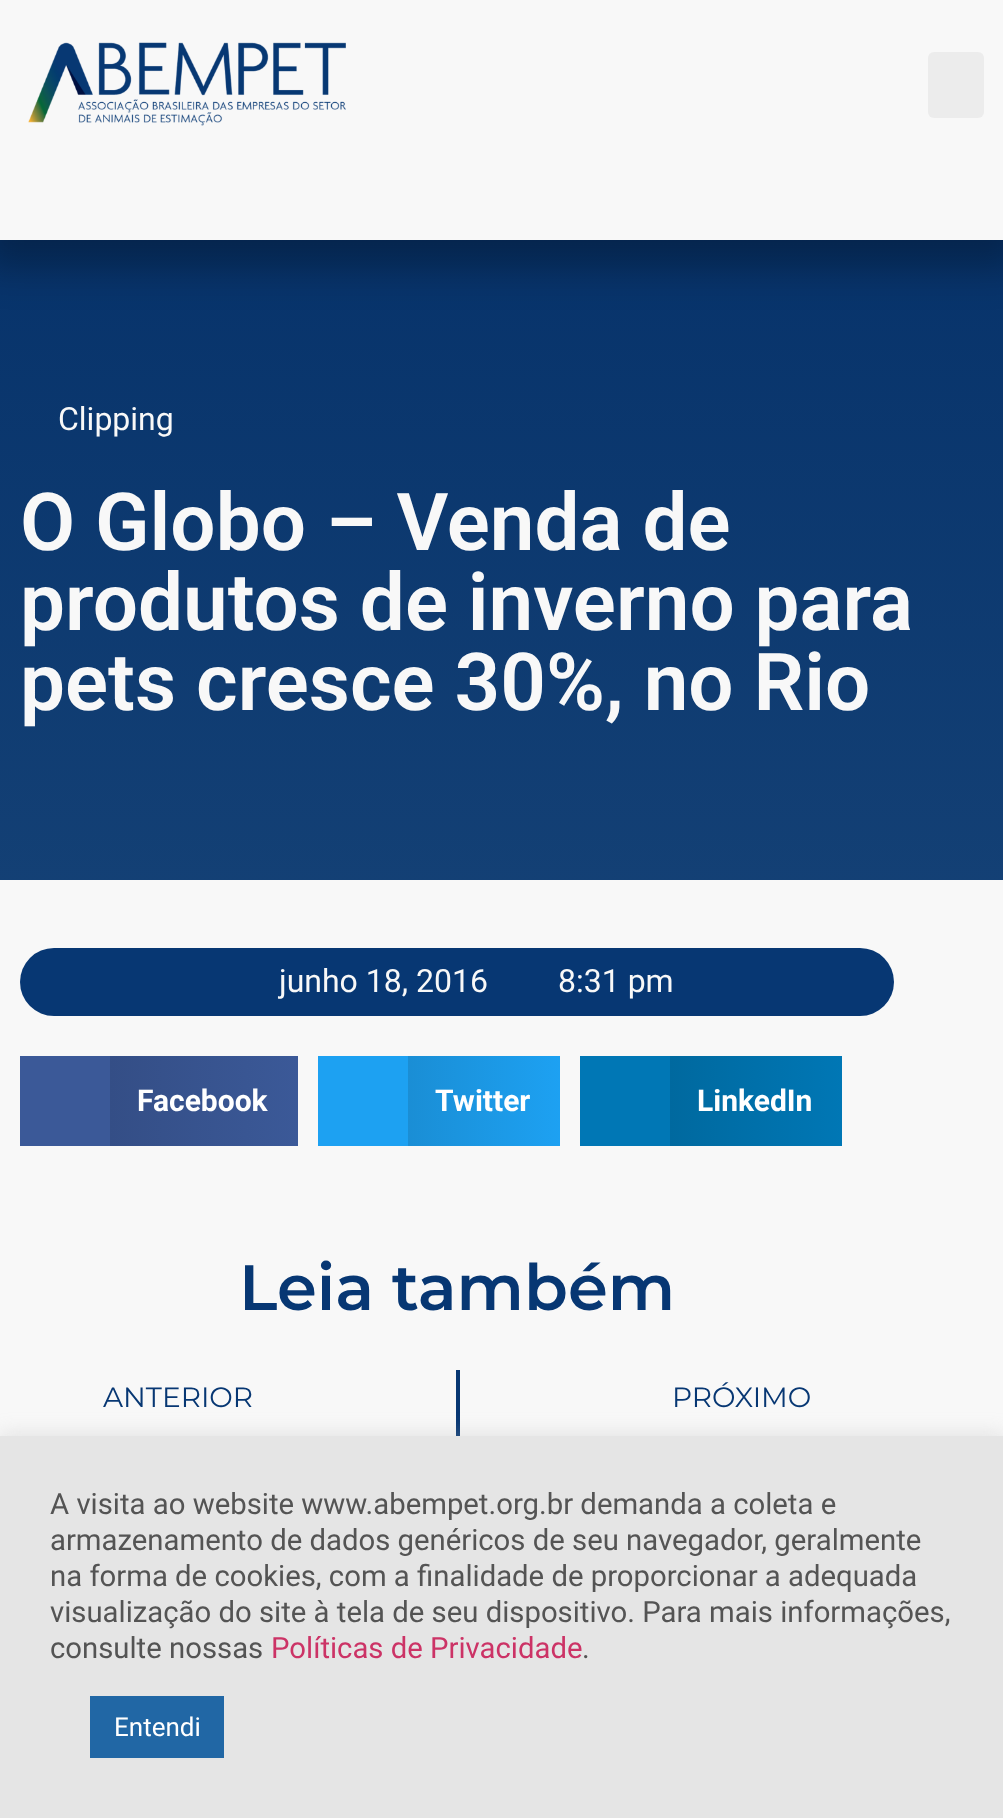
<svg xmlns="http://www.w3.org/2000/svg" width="1003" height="1818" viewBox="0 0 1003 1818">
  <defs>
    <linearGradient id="g1" gradientUnits="userSpaceOnUse" x1="502" y1="185" x2="502" y2="1081"><stop offset="0" stop-color="rgb(6,50,106)"/><stop offset="1" stop-color="rgb(23,68,120)"/></linearGradient>
    <linearGradient id="g2" gradientUnits="userSpaceOnUse" x1="110" y1="1101" x2="298" y2="1101"><stop offset="0" stop-color="rgb(52,78,134)"/><stop offset="1" stop-color="rgb(59,89,152)"/></linearGradient>
    <linearGradient id="g3" gradientUnits="userSpaceOnUse" x1="408" y1="1101" x2="560" y2="1101"><stop offset="0" stop-color="rgb(26,142,213)"/><stop offset="1" stop-color="rgb(29,161,242)"/></linearGradient>
    <linearGradient id="g4" gradientUnits="userSpaceOnUse" x1="670" y1="1101" x2="842" y2="1101"><stop offset="0" stop-color="rgb(0,105,159)"/><stop offset="1" stop-color="rgb(0,119,181)"/></linearGradient>
  </defs>
  <rect width="100%" height="100%" fill="rgb(255,255,255)"/>
  <rect x="0" y="240" width="1003" height="640" fill="url(#g1)"/>
  <rect x="-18" y="-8" width="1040" height="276" fill="rgba(0,0,0,0.28)" filter="blur(19px)"/>
  <rect x="0" y="0" width="1003" height="240" fill="rgb(248,248,248)"/>
  <image x="28" y="42" width="318" height="84" href="pic1.png"/>
  <rect x="928" y="52" width="56" height="66" rx="6" fill="rgb(236,236,236)"/>
  <text x="58" y="430" font-family="Roboto" font-size="32" fill="rgb(248,248,248)">Clipping</text>
  <g font-family="Roboto" font-size="80" font-weight="600" fill="rgb(248,248,248)">
    <text>
      <tspan x="20" y="550">O Globo – Venda de</tspan>
      <tspan x="20" y="630">produtos de inverno para</tspan>
      <tspan x="20" y="710">pets cresce 30%, no Rio</tspan>
    </text>
  </g>
  <rect x="0" y="880" width="1003" height="556" fill="rgb(248,248,248)"/>
  <rect x="20" y="948" width="874" height="68" rx="34" fill="rgb(7,55,115)"/>
  <g font-family="Roboto" font-size="32" fill="rgb(248,248,248)">
    <text x="279" y="992">junho 18, 2016</text>
    <text x="558" y="992">8:31 pm</text>
  </g>
  <rect x="20" y="1056" width="90" height="90" fill="rgb(59,89,152)"/>
  <rect x="110" y="1056" width="188" height="90" fill="url(#g2)"/>
  <text x="137" y="1111" font-family="Roboto" font-size="30" font-weight="bold" fill="rgb(255,255,255)">Facebook</text>
  <rect x="318" y="1056" width="90" height="90" fill="rgb(29,161,242)"/>
  <rect x="408" y="1056" width="152" height="90" fill="url(#g3)"/>
  <text x="435" y="1111" font-family="Roboto" font-size="30" font-weight="bold" fill="rgb(255,255,255)">Twitter</text>
  <rect x="580" y="1056" width="90" height="90" fill="rgb(0,119,181)"/>
  <rect x="670" y="1056" width="172" height="90" fill="url(#g4)"/>
  <text x="697" y="1111" font-family="Roboto" font-size="30" font-weight="bold" fill="rgb(255,255,255)">LinkedIn</text>
  <text x="239" y="1310" font-family="Montserrat" font-size="64" font-weight="600" fill="rgb(7,55,115)">Leia também</text>
  <text x="103" y="1407" font-family="Montserrat" font-size="28" fill="rgb(7,55,115)">ANTERIOR</text>
  <rect x="456" y="1370" width="4" height="66" fill="rgb(7,55,115)"/>
  <text x="672" y="1407" font-family="Montserrat" font-size="28" fill="rgb(7,55,115)">PRÓXIMO</text>
  <rect x="0" y="1434" width="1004" height="382" fill="rgba(172,171,171,0.3)" filter="blur(10px)"/>
  <rect x="0" y="1436" width="1003" height="382" fill="rgb(229,229,229)"/>
  <g font-family="Roboto" font-size="29.3" fill="rgb(84,84,84)">
    <text>
      <tspan x="50" y="1514">A visita ao website www.abempet.org.br demanda a coleta e</tspan>
      <tspan x="50" y="1550">armazenamento de dados genéricos de seu navegador, geralmente</tspan>
      <tspan x="50" y="1586">na forma de cookies, com a finalidade de proporcionar a adequada</tspan>
      <tspan x="50" y="1622">visualização do site à tela de seu dispositivo. Para mais informações,</tspan>
      <tspan x="50" y="1658">consulte nossas</tspan>
    </text>
  </g>
  <text x="271" y="1658" font-family="Roboto" font-size="29.3" fill="rgb(204,51,102)">Políticas de Privacidade</text>
  <text x="582" y="1658" font-family="Roboto" font-size="29.3" fill="rgb(84,84,84)">.</text>
  <rect x="90" y="1696" width="134" height="62" fill="rgb(33,103,165)"/>
  <text x="114" y="1736" font-family="Roboto" font-size="26" fill="rgb(255,255,255)">Entendi</text>
</svg>
